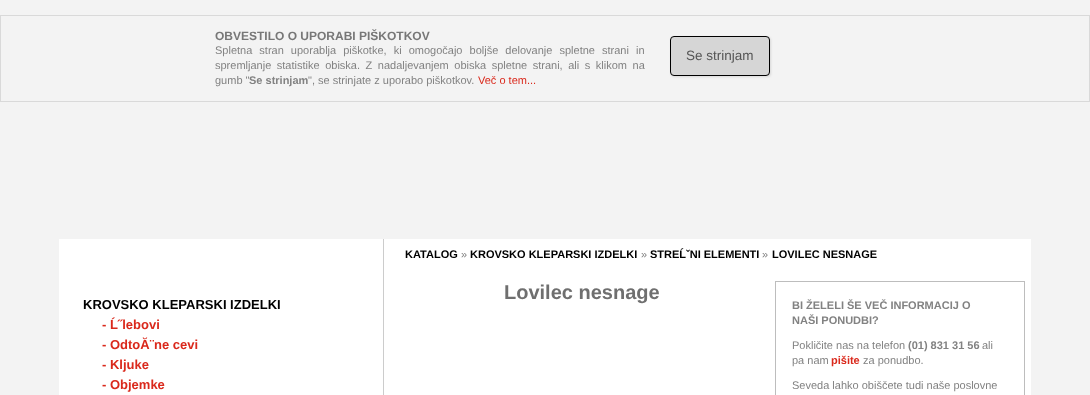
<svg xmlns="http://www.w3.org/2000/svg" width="1090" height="395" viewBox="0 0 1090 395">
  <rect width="100%" height="100%" fill="rgb(243,243,243)"/>
  <rect x="0.5" y="15.5" width="1089" height="86" fill="none" stroke="rgb(217,217,217)"/>
  <text x="215" y="40" font-family="Liberation Sans" font-size="12" font-weight="bold" fill="rgb(119,119,119)">OBVESTILO O UPORABI PIŠKOTKOV</text>
  <g font-family="Liberation Sans" font-size="11" fill="rgb(130,130,130)">
    <text>
      <tspan x="215" y="54" word-spacing="4">Spletna stran uporablja piškotke, ki omogočajo boljše delovanje spletne strani in</tspan>
      <tspan x="215" y="69" word-spacing="2.5">spremljanje statistike obiska. Z nadaljevanjem obiska spletne strani, ali s klikom na</tspan>
      <tspan x="215" y="84">gumb "</tspan>
    </text>
  </g>
  <text x="249" y="84" font-family="Liberation Sans" font-size="11" font-weight="bold" fill="rgb(130,130,130)">Se strinjam</text>
  <text x="308" y="84" font-family="Liberation Sans" font-size="11" fill="rgb(130,130,130)">", se strinjate z uporabo piškotkov.</text>
  <text x="478" y="84" font-family="Liberation Sans" font-size="11" fill="rgb(218,41,28)">Več o tem...</text>
  <rect x="671" y="37" width="100" height="40" rx="4" fill="rgba(0,0,0,0.11)" filter="blur(1px)"/>
  <rect x="670.5" y="36.5" width="99" height="39" rx="3.5" fill="rgb(214,214,214)" stroke="rgb(0,0,0)"/>
  <text x="686" y="60" font-family="Liberation Sans" font-size="13.5" fill="rgb(85,85,85)">Se strinjam</text>
  <rect x="59" y="239" width="972" height="156" fill="rgb(255,255,255)"/>
  <text x="83" y="309" font-family="Liberation Sans" font-size="13" font-weight="bold" fill="rgb(0,0,0)">KROVSKO KLEPARSKI IZDELKI</text>
  <g font-family="Liberation Sans" font-size="13" font-weight="bold" fill="rgb(218,41,28)">
    <text>
      <tspan x="102" y="329">- Ĺ˝lebovi</tspan>
      <tspan x="102" y="349">- OdtoĂ¨ne cevi</tspan>
      <tspan x="102" y="369">- Kljuke</tspan>
      <tspan x="102" y="389">- Objemke</tspan>
    </text>
  </g>
  <rect x="383" y="239" width="1" height="156" fill="rgb(204,204,204)"/>
  <text x="405" y="258" font-family="Liberation Sans" font-size="11" font-weight="bold" fill="rgb(0,0,0)">KATALOG</text>
  <text x="461" y="258" font-family="Liberation Sans" font-size="11" fill="rgb(130,130,130)">»</text>
  <text x="470" y="258" font-family="Liberation Sans" font-size="11" font-weight="bold" fill="rgb(0,0,0)">KROVSKO KLEPARSKI IZDELKI</text>
  <text x="641" y="258" font-family="Liberation Sans" font-size="11" fill="rgb(130,130,130)">»</text>
  <text x="650" y="258" font-family="Liberation Sans" font-size="11" font-weight="bold" fill="rgb(0,0,0)">STREĹˇNI ELEMENTI</text>
  <text x="762" y="258" font-family="Liberation Sans" font-size="11" fill="rgb(130,130,130)">»</text>
  <text x="772" y="258" font-family="Liberation Sans" font-size="11" font-weight="bold" fill="rgb(0,0,0)">LOVILEC NESNAGE</text>
  <text x="504" y="299" font-family="Liberation Sans" font-size="20" font-weight="bold" fill="rgb(111,111,111)">Lovilec nesnage</text>
  <rect x="775.5" y="281.5" width="249" height="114" fill="none" stroke="rgb(189,189,189)"/>
  <g font-family="Liberation Sans" font-size="11" font-weight="bold" fill="rgb(130,130,130)">
    <text>
      <tspan x="792" y="309">BI ŽELELI ŠE VEČ INFORMACIJ O</tspan>
      <tspan x="792" y="324">NAŠI PONUDBI?</tspan>
    </text>
  </g>
  <text x="792" y="349" font-family="Liberation Sans" font-size="11" fill="rgb(130,130,130)">Pokličite nas na telefon</text>
  <text x="908" y="349" font-family="Liberation Sans" font-size="11" font-weight="bold" fill="rgb(130,130,130)">(01) 831 31 56</text>
  <g font-family="Liberation Sans" font-size="11" fill="rgb(130,130,130)">
    <text x="982" y="349">ali</text>
    <text x="792" y="364">pa nam</text>
  </g>
  <text x="831" y="364" font-family="Liberation Sans" font-size="11" font-weight="bold" fill="rgb(218,41,28)">pišite</text>
  <g font-family="Liberation Sans" font-size="11" fill="rgb(130,130,130)">
    <text x="863" y="364">za ponudbo.</text>
    <text x="792" y="389">Seveda lahko obiščete tudi naše poslovne</text>
  </g>
</svg>
